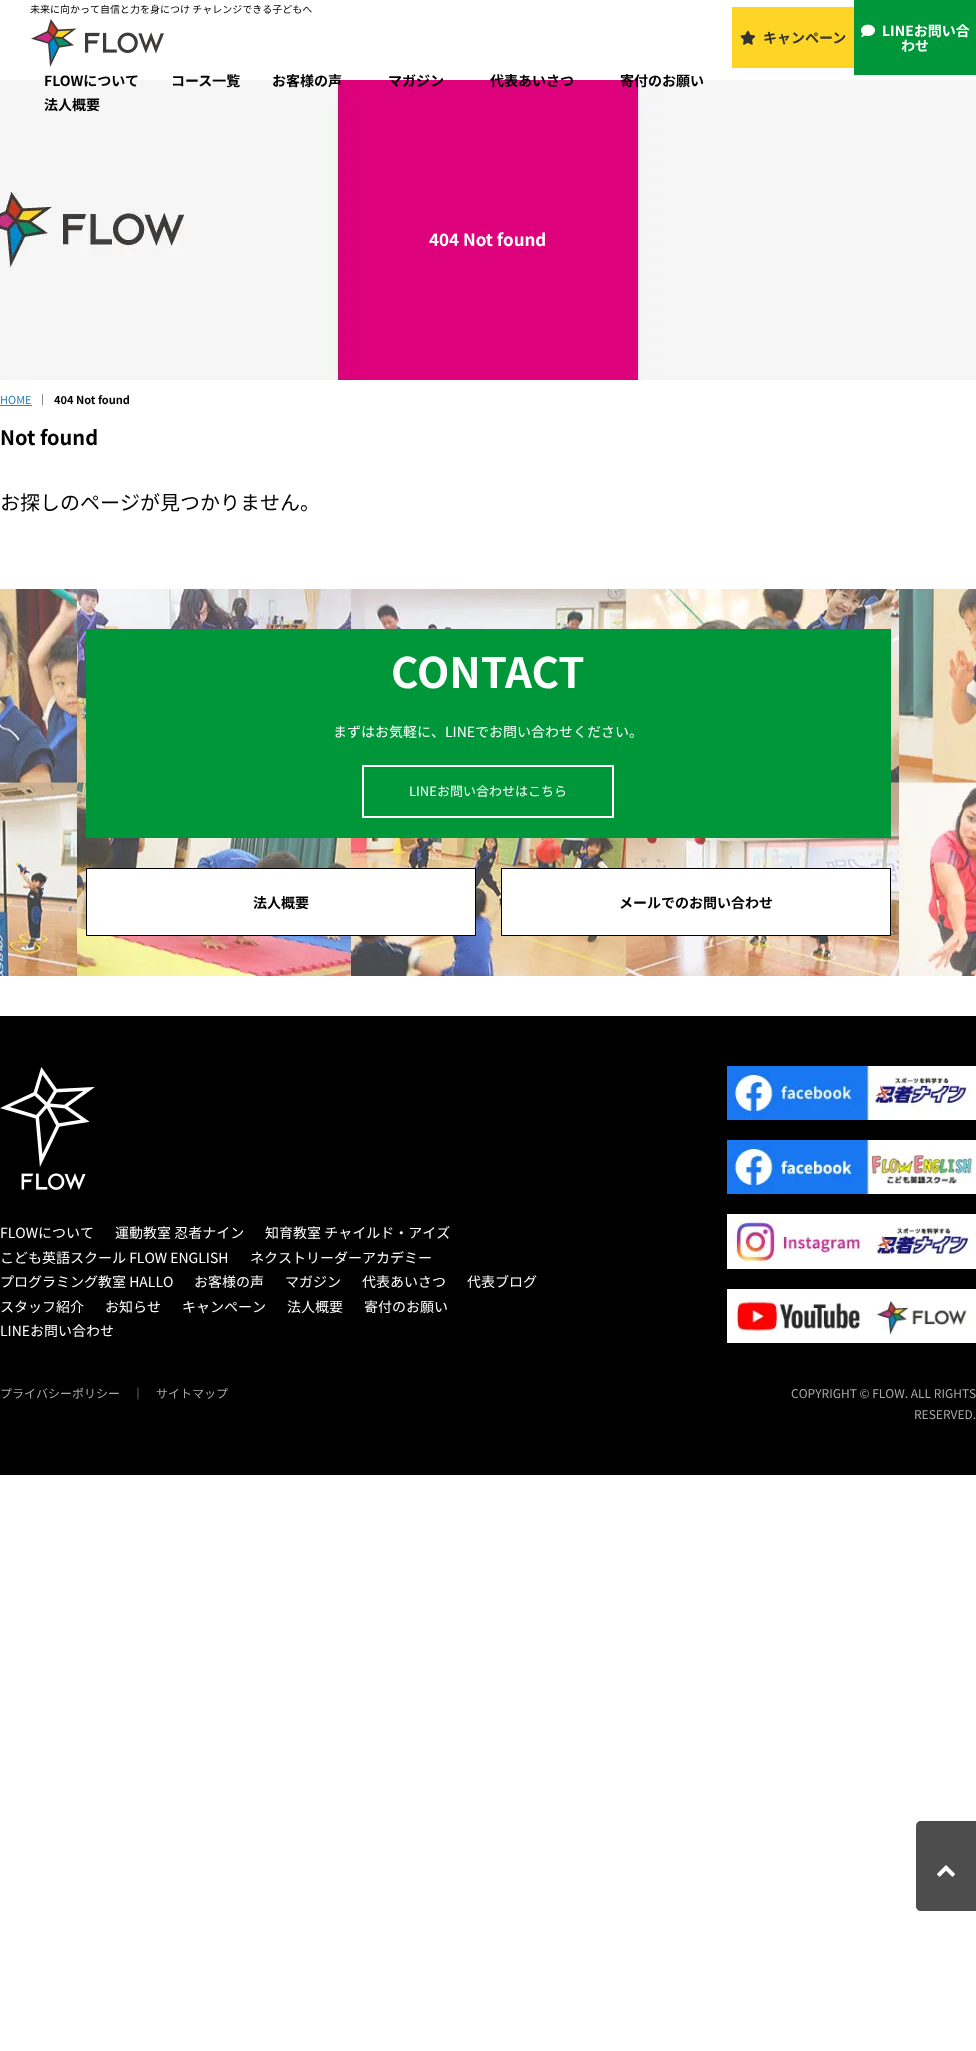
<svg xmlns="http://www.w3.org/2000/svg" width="976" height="2051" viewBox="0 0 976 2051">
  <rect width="100%" height="100%" fill="rgb(255,255,255)"/>
  <text x="30" y="13" font-family="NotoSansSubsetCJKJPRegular" font-size="10" fill="rgb(0,0,0)">未来に向かって自信と力を身につけ チャレンジできる子どもへ</text>
  <image x="31" y="19" width="133" height="48" href="pic1.png"/>
  <image x="0" y="80" width="976" height="300" href="pic4.png"/>
  <g font-family="Noto Sans CJK JP" font-size="14" font-weight="bold" fill="rgb(0,0,0)">
    <text x="44" y="86">FLOWについて</text>
    <text x="171" y="86">コース一覧</text>
    <text x="272" y="86">お客様の声</text>
    <text x="388" y="86">マガジン</text>
    <text x="490" y="86">代表あいさつ</text>
    <text x="620" y="86">寄付のお願い</text>
    <text x="44" y="110">法人概要</text>
  </g>
  <rect x="732" y="7" width="122" height="61" fill="rgb(255,213,37)"/>
  <image x="740" y="30" width="16" height="15" href="pic2.png"/>
  <text x="763" y="43" font-family="Noto Sans CJK JP" font-size="14" font-weight="bold" fill="rgb(51,51,51)">キャンペーン</text>
  <rect x="854" y="0" width="122" height="75" fill="rgb(0,151,59)"/>
  <image x="861" y="24" width="14" height="13" href="pic3.png"/>
  <g font-family="Noto Sans CJK JP" font-size="14" font-weight="bold" fill="rgb(255,255,255)">
    <text x="882" y="36">LINEお問い合</text>
    <text x="901" y="51">わせ</text>
  </g>
  <text x="429" y="246" font-family="Noto Sans CJK JP" font-size="17" font-weight="bold" fill="rgb(255,255,255)">404 Not found</text>
  <text x="0" y="404" font-family="NotoSansSubsetCJKJPRegular" font-size="11" fill="rgb(41,129,184)">HOME</text>
  <rect x="0" y="405" width="32" height="1" fill="rgb(41,129,184)"/>
  <text x="37" y="404" font-family="NotoSansSubsetCJKJPRegular" font-size="11" fill="rgb(0,0,0)">｜</text>
  <text x="54" y="404" font-family="Noto Sans CJK JP" font-size="11" font-weight="bold" fill="rgb(0,0,0)">404 Not found</text>
  <text x="0" y="445" font-family="Noto Sans CJK JP" font-size="20" font-weight="bold" fill="rgb(0,0,0)">Not found</text>
  <text x="0" y="510" font-family="NotoSansSubsetCJKJPRegular" font-size="20" fill="rgb(0,0,0)">お探しのページが見つかりません。</text>
  <image x="0" y="589" width="976" height="387" href="pic5.png"/>
  <rect x="86" y="629" width="805" height="209" fill="rgb(0,151,59)"/>
  <text x="391" y="688" font-family="Noto Sans CJK JP" font-size="42" font-weight="bold" fill="rgb(255,255,255)">CONTACT</text>
  <text x="333" y="737" font-family="NotoSansSubsetCJKJPRegular" font-size="14" fill="rgb(255,255,255)">まずはお気軽に、LINEでお問い合わせください。</text>
  <rect x="363" y="766" width="250" height="51" fill="none" stroke="rgb(255,255,255)" stroke-width="2"/>
  <text x="409" y="796" font-family="NotoSansSubsetCJKJPRegular" font-size="13" fill="rgb(255,255,255)">LINEお問い合わせはこちら</text>
  <rect x="86.5" y="868.5" width="389" height="67" fill="rgb(255,255,255)" stroke="rgb(0,0,0)"/>
  <text x="253" y="908" font-family="Noto Sans CJK JP" font-size="14" font-weight="bold" fill="rgb(0,0,0)">法人概要</text>
  <rect x="501.5" y="868.5" width="389" height="67" fill="rgb(255,255,255)" stroke="rgb(0,0,0)"/>
  <text x="619" y="908" font-family="Noto Sans CJK JP" font-size="14" font-weight="bold" fill="rgb(0,0,0)">メールでのお問い合わせ</text>
  <rect x="0" y="1016" width="976" height="459" fill="rgb(0,0,0)"/>
  <image x="0" y="1067" width="95" height="123" href="pic6.png"/>
  <g font-family="NotoSansSubsetCJKJPRegular" font-size="14" fill="rgb(255,255,255)">
    <text x="0" y="1238">FLOWについて</text>
    <text x="115" y="1238">運動教室 忍者ナイン</text>
    <text x="265" y="1238">知育教室 チャイルド・アイズ</text>
    <text x="0" y="1263">こども英語スクール FLOW ENGLISH</text>
    <text x="250" y="1263">ネクストリーダーアカデミー</text>
    <text x="0" y="1287">プログラミング教室 HALLO</text>
    <text x="194" y="1287">お客様の声</text>
    <text x="285" y="1287">マガジン</text>
    <text x="362" y="1287">代表あいさつ</text>
    <text x="467" y="1287">代表ブログ</text>
    <text x="0" y="1312">スタッフ紹介</text>
    <text x="105" y="1312">お知らせ</text>
    <text x="182" y="1312">キャンペーン</text>
    <text x="287" y="1312">法人概要</text>
    <text x="364" y="1312">寄付のお願い</text>
    <text x="0" y="1336">LINEお問い合わせ</text>
  </g>
  <image x="727" y="1066" width="249" height="54" href="pic7.png"/>
  <image x="727" y="1140" width="249" height="54" href="pic8.png"/>
  <image x="727" y="1214" width="249" height="55" href="pic9.png"/>
  <image x="727" y="1289" width="249" height="54" href="pic10.png"/>
  <g font-family="NotoSansSubsetCJKJPRegular" font-size="12" fill="rgb(170,170,170)">
    <text x="0" y="1398">プライバシーポリシー</text>
    <text x="132" y="1398">｜</text>
    <text x="156" y="1398">サイトマップ</text>
    <text x="791" y="1398">COPYRIGHT © FLOW. ALL RIGHTS</text>
    <text x="914" y="1419">RESERVED.</text>
  </g>
  <path d="M921 1821H976V1911H921C918 1911 916 1909 916 1906V1826C916 1823 918 1821 921 1821Z" fill="rgb(77,77,77)"/>
  <image x="937" y="1865" width="18" height="12" href="pic11.png"/>
</svg>
